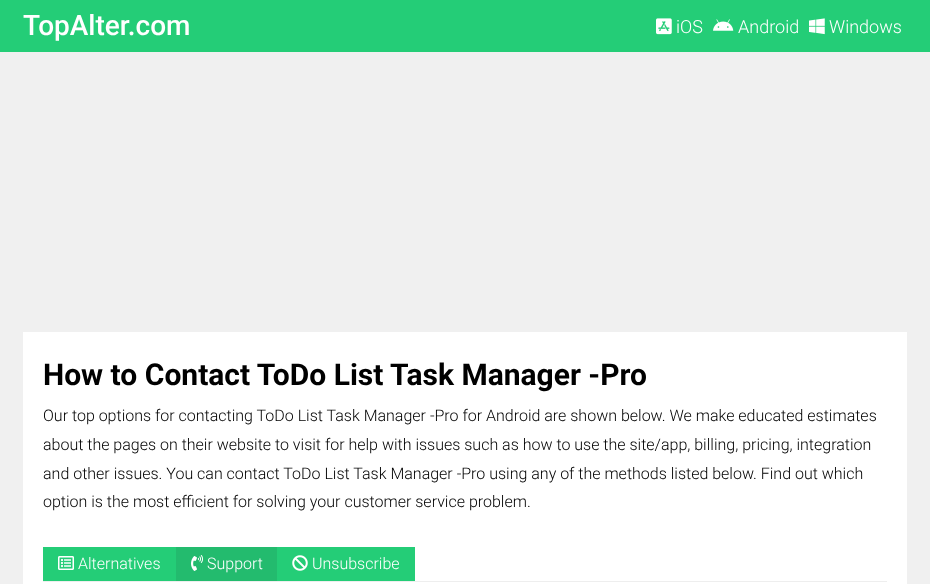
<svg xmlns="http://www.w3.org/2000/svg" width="930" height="584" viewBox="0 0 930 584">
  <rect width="100%" height="100%" fill="rgb(240,240,240)"/>
  <rect x="0" y="0" width="930" height="52" fill="rgb(36,205,119)"/>
  <text x="23" y="35" font-family="Roboto" font-size="28" font-weight="500" fill="rgb(255,255,255)">TopAlter.com</text>
  <image x="656" y="18" width="16" height="17" href="pic1.png"/>
  <text x="676" y="33" font-family="Roboto" font-size="18" font-weight="300" fill="rgb(255,255,255)">iOS</text>
  <image x="713" y="19" width="21" height="12" href="pic2.png"/>
  <text x="738" y="33" font-family="Roboto" font-size="18" font-weight="300" fill="rgb(255,255,255)">Android</text>
  <image x="809" y="18" width="16" height="17" href="pic3.png"/>
  <text x="829" y="33" font-family="Roboto" font-size="18" font-weight="300" fill="rgb(255,255,255)">Windows</text>
  <rect x="23" y="332" width="884" height="252" fill="rgb(255,255,255)"/>
  <text x="43" y="385" font-family="Roboto" font-size="30" font-weight="bold" fill="rgb(0,0,0)">How to Contact ToDo List Task Manager -Pro</text>
  <g font-family="Roboto" font-size="16" font-weight="300" fill="rgb(0,0,0)">
    <text>
      <tspan x="43" y="421">Our top options for contacting ToDo List Task Manager -Pro for Android are shown below. We make educated estimates</tspan>
      <tspan x="43" y="450">about the pages on their website to visit for help with issues such as how to use the site/app, billing, pricing, integration</tspan>
      <tspan x="43" y="479">and other issues. You can contact ToDo List Task Manager -Pro using any of the methods listed below. Find out which</tspan>
      <tspan x="43" y="507">option is the most efficient for solving your customer service problem.</tspan>
    </text>
  </g>
  <rect x="43" y="581" width="844" height="1" fill="rgb(238,238,238)"/>
  <rect x="43" y="547" width="133" height="34" fill="rgb(36,205,119)"/>
  <image x="58" y="556" width="16" height="14" href="pic4.png"/>
  <text x="78" y="569" font-family="Roboto" font-size="16" font-weight="300" fill="rgb(255,255,255)">Alternatives</text>
  <rect x="176" y="547" width="101" height="34" fill="rgb(35,187,110)"/>
  <image x="191" y="555" width="12" height="16" href="pic5.png"/>
  <text x="207" y="569" font-family="Roboto" font-size="16" font-weight="300" fill="rgb(255,255,255)">Support</text>
  <rect x="277" y="547" width="138" height="34" fill="rgb(36,205,119)"/>
  <image x="292" y="555" width="16" height="16" href="pic6.png"/>
  <text x="312" y="569" font-family="Roboto" font-size="16" font-weight="300" fill="rgb(255,255,255)">Unsubscribe</text>
</svg>
